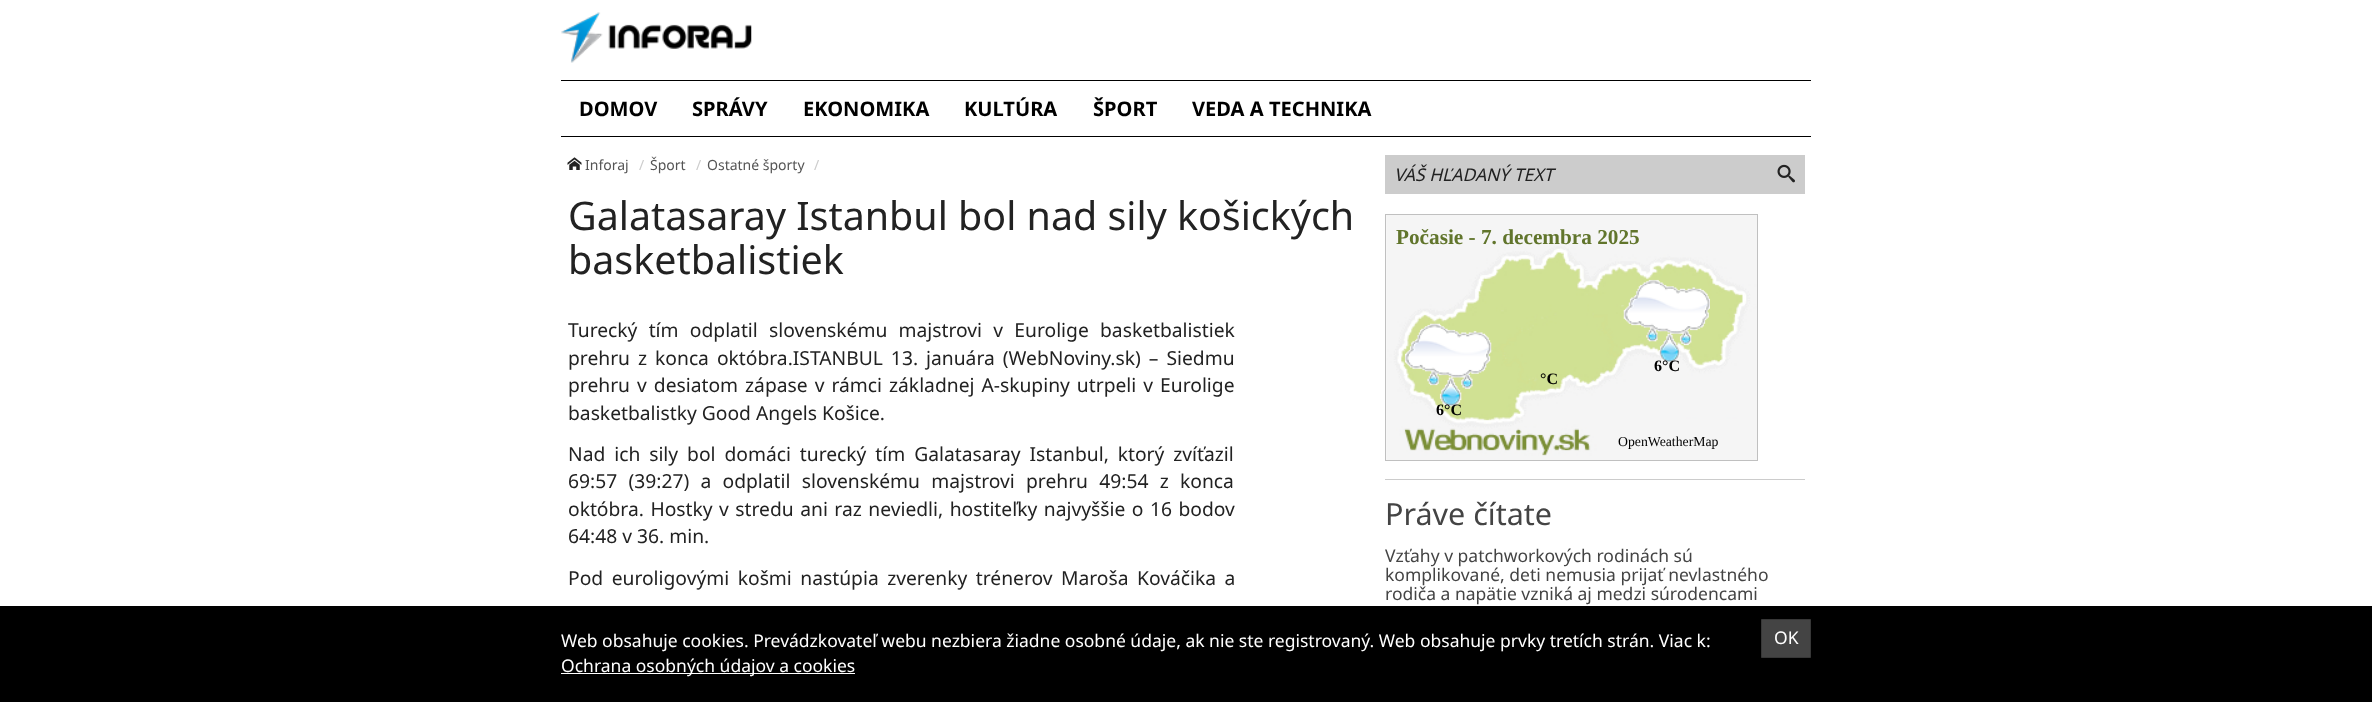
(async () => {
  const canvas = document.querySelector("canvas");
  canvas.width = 2372;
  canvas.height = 702;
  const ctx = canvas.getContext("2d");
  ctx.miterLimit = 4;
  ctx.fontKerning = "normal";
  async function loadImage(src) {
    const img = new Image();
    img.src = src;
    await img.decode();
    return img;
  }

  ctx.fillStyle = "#ffffff";
  ctx.fillRect(0, 0, 2372, 702);
  ctx.drawImage(await loadImage("img/1.png"), 561, 12, 191, 51);
  ctx.fillStyle = "#000000";
  ctx.fillRect(561, 80, 1250, 1);
  ctx.fillRect(561, 136, 1250, 1);
  ctx.drawImage(await loadImage("img/2.png"), 567, 157, 15, 13);
  ctx.fillStyle = "#cccccc";
  ctx.fillRect(1385, 155, 420, 39);
  ctx.drawImage(await loadImage("img/3.png"), 1777, 164, 18, 19);
  ctx.fillRect(1385, 479, 420, 1);
  ctx.drawImage(await loadImage("img/4.png"), 1386, 215, 371, 245);
  ctx.strokeStyle = "#c0c0c0";
  ctx.strokeRect(1385.5, 214.5, 372, 246);
  ctx.drawImage(await loadImage("img/5.png"), 1405, 323, 87, 84);
  ctx.drawImage(await loadImage("img/6.png"), 1623, 279, 87, 84);
  ctx.fillStyle = "#000000";
  ctx.fillRect(0, 606, 2372, 96);
  ctx.fillStyle = "#ffffff";
  ctx.fillRect(561, 673, 294, 1);
  ctx.fillStyle = "#444444";
  ctx.beginPath();
  ctx.rect(1761.5, 619.5, 49, 38);
  ctx.fill();
  ctx.strokeStyle = "#373737";
  ctx.stroke();
  ctx.font = "bold 20.1px Noto Sans";
  ctx.fillStyle = "#000000";
  for (const [text, x, y] of [
    ["DOMOV", 579, 116],
    ["SPRÁVY", 692, 116],
    ["EKONOMIKA", 803, 116],
    ["KULTÚRA", 964, 116],
    ["ŠPORT", 1093, 116],
    ["VEDA A TECHNIKA", 1192, 116],
  ]) {
    ctx.fillText(text, x, y);
  }
  ctx.font = "14px Noto Sans";
  ctx.fillStyle = "#555555";
  ctx.fillText("Inforaj", 585, 170);
  ctx.fillStyle = "#cccccc";
  ctx.fillText("/", 639, 170);
  ctx.fillStyle = "#555555";
  ctx.fillText("Šport", 650, 170);
  ctx.fillStyle = "#cccccc";
  ctx.fillText("/", 696, 170);
  ctx.fillStyle = "#555555";
  ctx.fillText("Ostatné športy", 707, 170);
  ctx.fillStyle = "#cccccc";
  ctx.fillText("/", 814, 170);
  ctx.font = "39.4px Noto Sans";
  ctx.fillStyle = "#222222";
  ctx.fillText("Galatasaray Istanbul bol nad sily košických", 568, 230);
  ctx.fillText("basketbalistiek", 568, 274);
  ctx.wordSpacing = "6.25px";
  ctx.font = "19.25px Noto Sans";
  ctx.fillText("Turecký tím odplatil slovenskému majstrovi v Eurolige basketbalistiek", 568, 337);
  ctx.wordSpacing = "3px";
  ctx.fillText("prehru z konca októbra.ISTANBUL 13. januára (WebNoviny.sk) – Siedmu", 568, 365);
  ctx.wordSpacing = "2px";
  ctx.fillText("prehru v desiatom zápase v rámci základnej A-skupiny utrpeli v Eurolige", 568, 392);
  ctx.wordSpacing = "0px";
  ctx.fillText("basketbalistky Good Angels Košice.", 568, 420);
  ctx.wordSpacing = "3.9px";
  ctx.fillText("Nad ich sily bol domáci turecký tím Galatasaray Istanbul, ktorý zvíťazil", 568, 461);
  ctx.wordSpacing = "6.25px";
  ctx.fillText("69:57 (39:27) a odplatil slovenskému majstrovi prehru 49:54 z konca", 568, 488);
  ctx.wordSpacing = "1.5px";
  ctx.fillText("októbra. Hostky v stredu ani raz neviedli, hostiteľky najvyššie o 16 bodov", 568, 516);
  ctx.wordSpacing = "0px";
  ctx.fillText("64:48 v 36. min.", 568, 543);
  ctx.wordSpacing = "3.5px";
  ctx.fillText("Pod euroligovými košmi nastúpia zverenky trénerov Maroša Kováčika a", 568, 585);
  ctx.wordSpacing = "0px";
  ctx.font = "italic 17.5px Noto Sans";
  ctx.fillText("VÁŠ HĽADANÝ TEXT", 1394, 181);
  ctx.font = "bold 21.25px Liberation Serif";
  ctx.fillStyle = "#61752c";
  ctx.fillText("Počasie - 7. decembra 2025", 1396, 244);
  ctx.font = "bold 16px Liberation Serif";
  ctx.fillStyle = "#000000";
  for (const [text, x, y] of [
    ["6°C", 1654, 371],
    ["°C", 1540, 384],
    ["6°C", 1436, 415],
  ]) {
    ctx.fillText(text, x, y);
  }
  ctx.font = "13.75px Liberation Serif";
  ctx.fillText("OpenWeatherMap", 1618, 446);
  ctx.font = "30.5px Noto Sans";
  ctx.fillStyle = "#444444";
  ctx.fillText("Práve čítate", 1385, 525);
  ctx.font = "17.5px Noto Sans";
  for (const [text, x, y] of [
    ["Vzťahy v patchworkových rodinách sú", 1385, 562],
    ["komplikované, deti nemusia prijať nevlastného", 1385, 581],
    ["rodiča a napätie vzniká aj medzi súrodencami", 1385, 600],
  ]) {
    ctx.fillText(text, x, y);
  }
  ctx.fillStyle = "#ffffff";
  for (const [text, x, y] of [
    ["Web obsahuje cookies. Prevádzkovateľ webu nezbiera žiadne osobné údaje, ak nie ste registrovaný. Web obsahuje prvky tretích strán. Viac k:", 561, 647],
    ["Ochrana osobných údajov a cookies", 561, 672],
    ["OK", 1774, 644],
  ]) {
    ctx.fillText(text, x, y);
  }
})();
